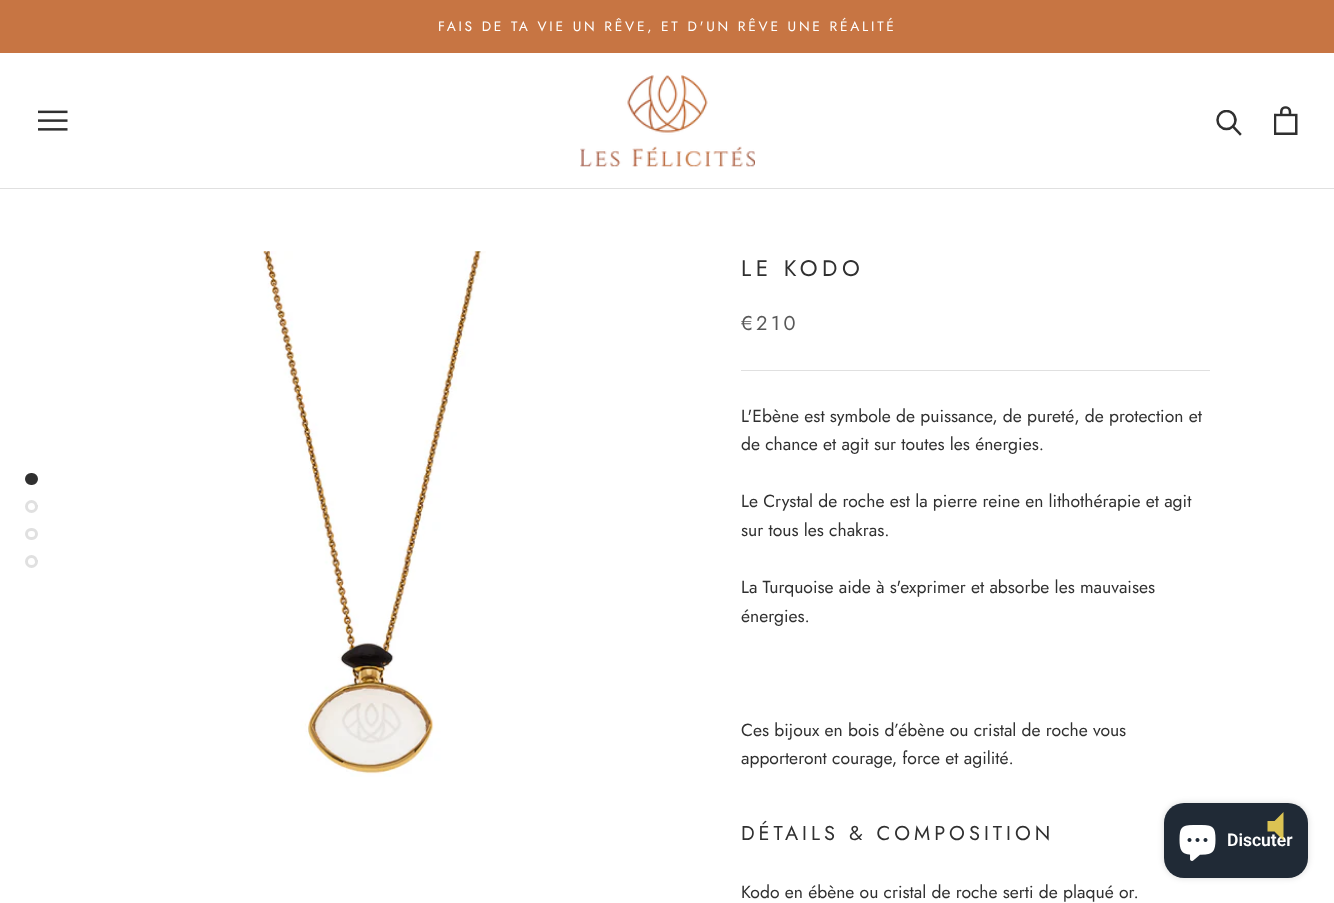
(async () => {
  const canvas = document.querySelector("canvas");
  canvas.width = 1334;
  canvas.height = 903;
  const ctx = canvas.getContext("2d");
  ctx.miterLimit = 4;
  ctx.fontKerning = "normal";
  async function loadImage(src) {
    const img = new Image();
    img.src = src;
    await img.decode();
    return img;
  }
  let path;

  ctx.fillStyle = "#ffffff";
  ctx.fillRect(0, 0, 1334, 903);
  ctx.fillStyle = "#c77543";
  ctx.fillRect(0, 0, 1334, 53);
  ctx.fillStyle = "#e0e0e0";
  ctx.fillRect(0, 188, 1334, 1);
  ctx.drawImage(await loadImage("img/1.png"), 38, 110, 30, 21);
  ctx.drawImage(await loadImage("img/2.png"), 580, 75, 175, 92);
  path = new Path2D("M1240 134L1233 126.5");
  ctx.strokeStyle = "#303030";
  ctx.lineWidth = 2.5;
  ctx.lineCap = "square";
  ctx.stroke(path);
  ctx.save();
  ctx.beginPath();
  ctx.rect(1216, 110, 27, 26);
  ctx.clip();
  ctx.beginPath();
  ctx.arc(1226.5, 120, 9, 0, Math.PI * 2);
  ctx.stroke();
  ctx.restore();
  ctx.drawImage(await loadImage("img/3.png"), 1274, 106, 24, 29);
  ctx.fillStyle = "#303030";
  ctx.beginPath();
  ctx.roundRect(26.5, 474.5, 10, 9, 4.5);
  ctx.fill();
  ctx.lineWidth = 3;
  ctx.stroke();
  ctx.beginPath();
  ctx.arc(31.5, 506.5, 5, 0, Math.PI * 2);
  ctx.strokeStyle = "#e0e0e0";
  ctx.stroke();
  ctx.beginPath();
  ctx.roundRect(26.5, 529.5, 10, 9, 4.5);
  ctx.stroke();
  ctx.beginPath();
  ctx.arc(31.5, 561.5, 5, 0, Math.PI * 2);
  ctx.stroke();
  ctx.drawImage(await loadImage("img/4.png"), 261, 251, 225, 526);
  ctx.fillStyle = "#e0e0e0";
  ctx.fillRect(741, 370, 469, 1);
  ctx.fillStyle = "rgba(0, 0, 0, 0.15)";
  ctx.filter = "blur(3px)";
  ctx.beginPath();
  ctx.roundRect(1164, 803, 144, 75, 20);
  ctx.fill();
  ctx.filter = "none";
  ctx.fillStyle = "#202a36";
  ctx.beginPath();
  ctx.roundRect(1164, 803, 144, 75, 20);
  ctx.fill();
  ctx.drawImage(await loadImage("img/5.png"), 1179, 825, 37, 36);
  ctx.letterSpacing = "2.75px";
  ctx.font = "13.75px Jost";
  ctx.fillStyle = "#ffffff";
  ctx.fillText("FAIS DE TA VIE UN RÊVE, ET D'UN RÊVE UNE RÉALITÉ", 438, 31);
  ctx.letterSpacing = "4.5px";
  ctx.font = "22.5px Jost";
  ctx.fillStyle = "#303030";
  ctx.fillText("LE KODO", 741, 276);
  ctx.letterSpacing = "3.5px";
  ctx.font = "20px Jost";
  ctx.fillStyle = "#595959";
  ctx.fillText("€210", 741, 330);
  ctx.letterSpacing = "0px";
  ctx.font = "17.5px Jost";
  ctx.fillStyle = "#303030";
  for (const [text, x, y] of [
    ["L'Ebène est symbole de puissance, de pureté, de protection et", 741, 422],
    ["de chance et agit sur toutes les énergies.", 741, 450],
    ["Le Crystal de roche est la pierre reine en lithothérapie et agit", 741, 507],
    ["sur tous les chakras.", 741, 536],
    ["La Turquoise aide à s'exprimer et absorbe les mauvaises", 741, 593],
    ["énergies.", 741, 622],
    ["Ces bijoux en bois d’ébène ou cristal de roche vous", 741, 736],
    ["apporteront courage, force et agilité.", 741, 764],
  ]) {
    ctx.fillText(text, x, y);
  }
  ctx.letterSpacing = "4px";
  ctx.font = "20px Jost";
  ctx.fillText("DÉTAILS & COMPOSITION", 741, 840);
  ctx.letterSpacing = "0px";
  ctx.font = "17.5px Jost";
  ctx.fillText("Kodo en ébène ou cristal de roche serti de plaqué or.", 741, 898);
  ctx.font = "600 17.5px Roboto";
  ctx.fillStyle = "#ffffff";
  ctx.fillText("Discuter", 1227, 846);
  ctx.fillStyle = "rgba(239, 212, 87, 0.9)";
  path = new Path2D("M1267.5 821V831.5H1274.5L1283.5 840.5V812L1274.5 821Z");
  ctx.fill(path);
})();
